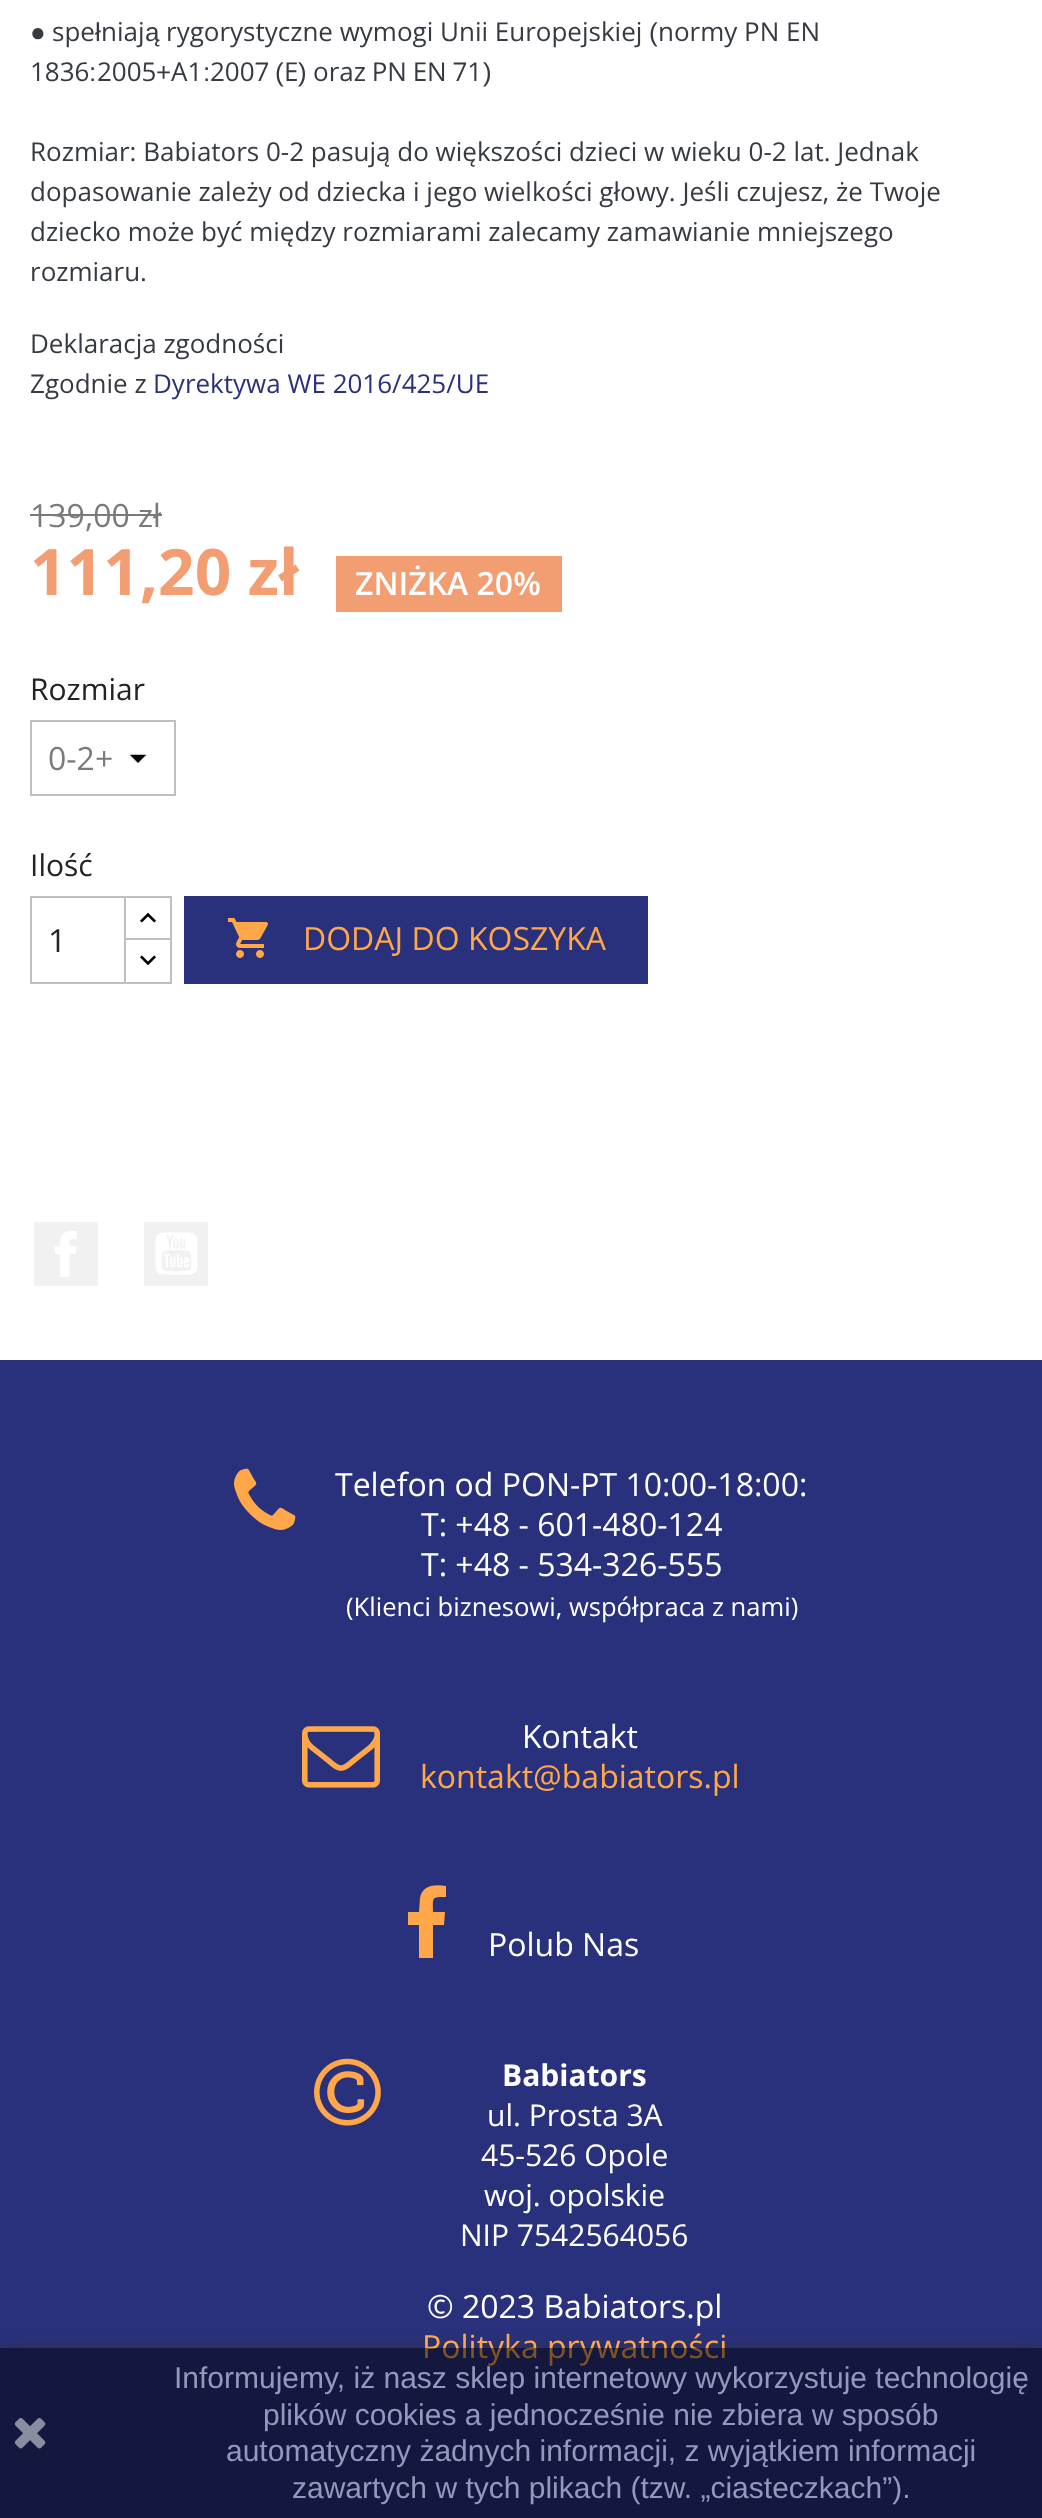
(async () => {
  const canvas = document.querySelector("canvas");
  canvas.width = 1042;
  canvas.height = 2518;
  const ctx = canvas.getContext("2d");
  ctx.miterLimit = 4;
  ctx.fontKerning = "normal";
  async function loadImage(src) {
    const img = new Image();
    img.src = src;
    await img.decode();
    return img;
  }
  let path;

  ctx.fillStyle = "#ffffff";
  ctx.fillRect(0, 0, 1042, 2518);
  ctx.fillStyle = "#7a7a7a";
  ctx.fillRect(30, 514, 132, 2);
  ctx.fillStyle = "#f39d72";
  ctx.fillRect(336, 556, 226, 56);
  ctx.drawImage(await loadImage("img/1.png"), 129, 754, 18, 9);
  ctx.strokeStyle = "#bfbfbf";
  ctx.lineWidth = 2;
  ctx.strokeRect(31, 721, 144, 74);
  ctx.strokeRect(125, 897, 46, 44);
  ctx.fillStyle = "#ffffff";
  ctx.fillRect(126, 940, 44, 2);
  ctx.strokeRect(125, 939, 46, 44);
  ctx.strokeRect(31, 897, 94, 86);
  ctx.drawImage(await loadImage("img/2.png"), 140, 912, 16, 11);
  ctx.drawImage(await loadImage("img/3.png"), 140, 955, 16, 11);
  ctx.fillStyle = "#2a317c";
  ctx.fillRect(184, 896, 464, 88);
  ctx.drawImage(await loadImage("img/4.png"), 227, 918, 41, 40);
  ctx.fillStyle = "#f1f1f1";
  ctx.fillRect(34, 1222, 64, 64);
  ctx.drawImage(await loadImage("img/5.png"), 55, 1231, 22, 46);
  ctx.fillRect(144, 1222, 64, 64);
  ctx.drawImage(await loadImage("img/6.png"), 155, 1232, 43, 43);
  ctx.fillStyle = "#2a317c";
  ctx.fillRect(0, 1360, 1042, 1158);
  ctx.drawImage(await loadImage("img/7.png"), 234, 1468, 62, 62);
  ctx.drawImage(await loadImage("img/8.png"), 302, 1726, 78, 62);
  ctx.fillStyle = "#ffa749";
  path = new Path2D("M446 1886V1897C431 1897 433 1897 433 1912H445L444 1925H433V1958H419V1925H408V1912H419L420 1898C422 1885 435 1884 446 1886Z");
  ctx.fill(path);
  ctx.drawImage(await loadImage("img/9.png"), 314, 2058, 67, 68);
  ctx.save();
  ctx.beginPath();
  ctx.rect(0, 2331, 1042, 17);
  ctx.clip();
  ctx.fillStyle = "rgba(43, 43, 43, 0.5)";
  ctx.filter = "blur(10px)";
  ctx.beginPath();
  ctx.rect(0, 2348, 1042, 170);
  ctx.fill();
  ctx.filter = "none";
  ctx.restore();
  ctx.font = "26px Liberation Sans";
  ctx.fillStyle = "#363a42";
  ctx.fillText("●", 30, 41);
  ctx.font = "26px Open Sans";
  ctx.fillText("spe", 52, 41);
  ctx.font = "26px Liberation Sans";
  ctx.fillText("ł", 95, 41);
  ctx.font = "26px Open Sans";
  ctx.fillText("niaj", 101, 41);
  ctx.font = "26px Liberation Sans";
  ctx.fillText("ą", 145, 41);
  ctx.font = "26px Open Sans";
  ctx.fillText("rygorystyczne wymogi Unii Europejskiej", 166, 41);
  ctx.font = "26px Liberation Sans";
  ctx.fillText("(", 649, 41);
  ctx.font = "26px Open Sans";
  ctx.fillText("normy PN EN", 658, 41);
  ctx.fillText("1836", 30, 81);
  ctx.font = "26px Liberation Sans";
  ctx.fillText(":", 89, 81);
  ctx.font = "26px Open Sans";
  ctx.fillText("2005", 97, 81);
  ctx.font = "26px Liberation Sans";
  ctx.fillText("+", 156, 81);
  ctx.font = "26px Open Sans";
  ctx.fillText("A1", 171, 81);
  ctx.font = "26px Liberation Sans";
  ctx.fillText(":", 203, 81);
  ctx.font = "26px Open Sans";
  ctx.fillText("2007", 210, 81);
  ctx.font = "26px Liberation Sans";
  ctx.fillText("(", 275, 81);
  ctx.font = "26px Open Sans";
  ctx.fillText("E", 284, 81);
  ctx.font = "26px Liberation Sans";
  ctx.fillText(")", 298, 81);
  ctx.wordSpacing = "-1px";
  ctx.font = "26px Open Sans";
  ctx.fillText("oraz PN EN 71", 313, 81);
  ctx.wordSpacing = "0px";
  ctx.font = "26px Liberation Sans";
  ctx.fillText(")", 483, 81);
  ctx.font = "26px Open Sans";
  for (const [text, x, y] of [
    ["Rozmiar: Babiators 0-2 pasują do większości dzieci w wieku 0-2 lat. Jednak", 30, 161],
    ["dopasowanie zależy od dziecka i jego wielkości głowy. Jeśli czujesz, że Twoje", 30, 201],
    ["dziecko może być między rozmiarami zalecamy zamawianie mniejszego", 30, 241],
    ["rozmiaru.", 30, 281],
    ["Deklaracja zgodności", 30, 353],
    ["Zgodnie z", 30, 393],
  ]) {
    ctx.fillText(text, x, y);
  }
  ctx.fillStyle = "#2a317c";
  ctx.fillText("Dyrektywa WE 2016/425/UE", 153, 393);
  ctx.font = "32px Open Sans";
  ctx.fillStyle = "#7a7a7a";
  ctx.fillText("139,00 zł", 30, 527);
  ctx.font = "bold 64px Open Sans";
  ctx.fillStyle = "#f39d72";
  ctx.fillText("111,20 zł", 30, 595);
  ctx.font = "600 32px Open Sans";
  ctx.fillStyle = "#ffffff";
  ctx.fillText("ZNIŻKA 20%", 355, 595);
  ctx.font = "30px Open Sans";
  ctx.fillStyle = "#232323";
  ctx.fillText("Rozmiar", 30, 700);
  ctx.font = "32px Open Sans";
  ctx.fillStyle = "#7a7a7a";
  ctx.fillText("0-2+", 48, 770);
  ctx.font = "30px Open Sans";
  ctx.fillStyle = "#232323";
  ctx.fillText("Ilość", 30, 876);
  ctx.font = "32px Open Sans";
  ctx.fillText("1", 48, 952);
  ctx.fillStyle = "#ffa749";
  ctx.fillText("DODAJ DO KOSZYKA", 303, 950);
  ctx.fillStyle = "#ffffff";
  for (const [text, x, y] of [
    ["Telefon od PON-PT 10:00-18:00:", 335, 1496],
    ["T: +48 - 601-480-124", 421, 1536],
    ["T: +48 - 534-326-555", 421, 1576],
  ]) {
    ctx.fillText(text, x, y);
  }
  ctx.font = "25.6px Open Sans";
  ctx.fillText("(Klienci biznesowi, współpraca z nami)", 346, 1616);
  ctx.font = "32px Open Sans";
  ctx.fillText("Kontakt", 522, 1748);
  ctx.fillStyle = "#ffa749";
  ctx.fillText("kontakt@babiators.pl", 420, 1788);
  ctx.fillStyle = "#ffffff";
  ctx.fillText("Polub Nas", 488, 1956);
  ctx.font = "bold 30px Open Sans";
  ctx.fillText("Babiators", 502, 2086);
  ctx.font = "30px Open Sans";
  for (const [text, x, y] of [
    ["ul. Prosta 3A", 487, 2126],
    ["45-526 Opole", 481, 2166],
    ["woj. opolskie", 484, 2206],
    ["NIP 7542564056", 460, 2246],
  ]) {
    ctx.fillText(text, x, y);
  }
  ctx.font = "32px Open Sans";
  ctx.fillText("© 2023 Babiators.pl", 427, 2318);
  ctx.fillStyle = "#ffa749";
  ctx.fillText("Polityka prywatności", 422, 2358);
  ctx.fillStyle = "rgba(0, 0, 0, 0.5)";
  ctx.fillRect(0, 2348, 1042, 170);
  ctx.drawImage(await loadImage("img/10.png"), 14, 2418, 32, 31);
  ctx.font = "30px Liberation Sans";
  ctx.fillStyle = "#9598be";
  for (const [text, x, y] of [
    ["Informujemy, iż nasz sklep internetowy wykorzystuje technologię", 174, 2388],
    ["plików cookies a jednocześnie nie zbiera w sposób", 263, 2425],
    ["automatyczny żadnych informacji, z wyjątkiem informacji", 226, 2461],
    ["zawartych w tych plikach (tzw. „ciasteczkach”).", 292, 2498],
  ]) {
    ctx.fillText(text, x, y);
  }
})();
